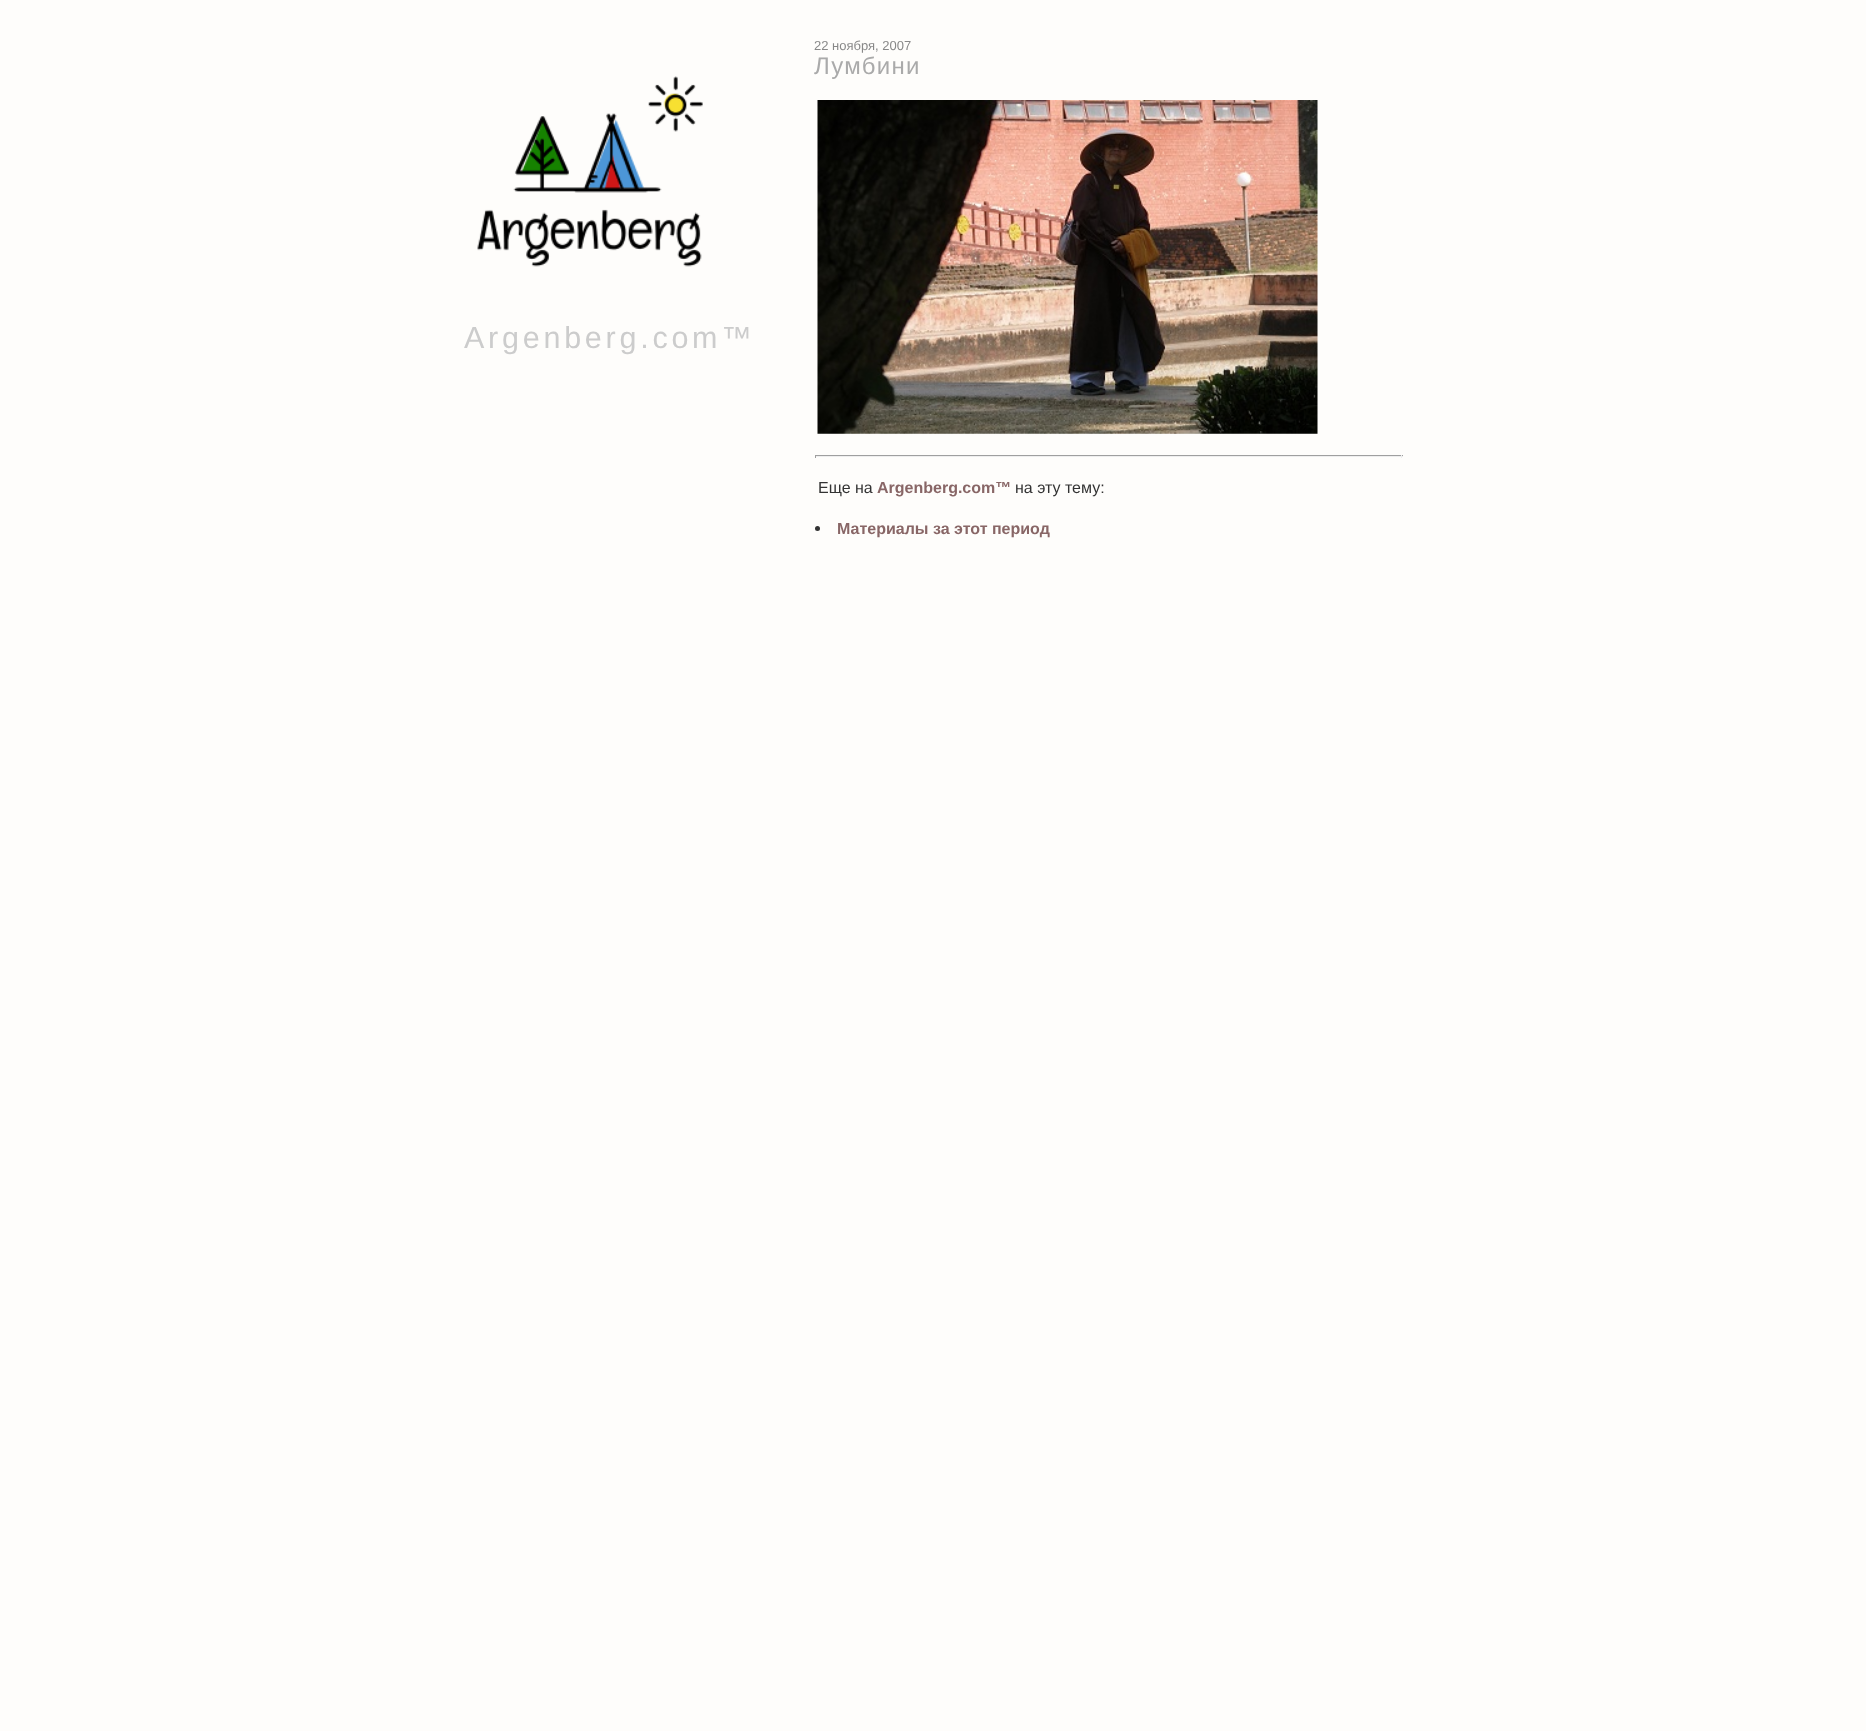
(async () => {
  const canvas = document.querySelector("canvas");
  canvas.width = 1866;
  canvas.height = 1731;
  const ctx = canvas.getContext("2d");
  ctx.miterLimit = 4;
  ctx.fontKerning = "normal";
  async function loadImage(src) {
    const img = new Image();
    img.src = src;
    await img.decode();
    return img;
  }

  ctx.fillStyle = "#fefdfb";
  ctx.fillRect(0, 0, 1866, 1731);
  ctx.drawImage(await loadImage("img/1.png"), 477, 76, 226, 191);
  ctx.drawImage(await loadImage("img/2.png"), 817, 100, 501, 334);
  for (const [x, y, w, h, color] of [
    [815, 455, 588, 1, "#9f9f9f"],
    [1401, 455, 1, 3, "#eeeeee"],
    [815, 456, 588, 1, "#eeeeee"],
    [815, 455, 1, 3, "#9f9f9f"],
  ]) {
    ctx.fillStyle = color;
    ctx.fillRect(x, y, w, h);
  }
  ctx.fillStyle = "#333333";
  ctx.beginPath();
  ctx.arc(817.5, 528.5, 2.5, 0, Math.PI * 2);
  ctx.fill();
  ctx.letterSpacing = "3.75px";
  ctx.font = "30.5px Liberation Sans";
  ctx.fillStyle = "#cccccc";
  ctx.fillText("Argenberg.com™", 464, 348);
  ctx.letterSpacing = "0px";
  ctx.font = "13px Liberation Sans";
  ctx.fillStyle = "#888888";
  ctx.fillText("22 ноября, 2007", 814, 50);
  ctx.letterSpacing = "1.25px";
  ctx.font = "24px Liberation Sans";
  ctx.fillStyle = "#aaaaaa";
  ctx.fillText("Лумбини", 814, 74);
  ctx.letterSpacing = "0px";
  ctx.font = "16px Liberation Sans";
  ctx.fillStyle = "#333333";
  ctx.fillText("Еще на", 818, 493);
  ctx.font = "bold 16px Liberation Sans";
  ctx.fillStyle = "#886666";
  ctx.fillText("Argenberg.com™", 877, 493);
  ctx.font = "16px Liberation Sans";
  ctx.fillStyle = "#333333";
  ctx.fillText("на эту тему:", 1015, 493);
  ctx.font = "bold 16px Liberation Sans";
  ctx.fillStyle = "#886666";
  ctx.fillText("Материалы за этот период", 837, 534);
})();
